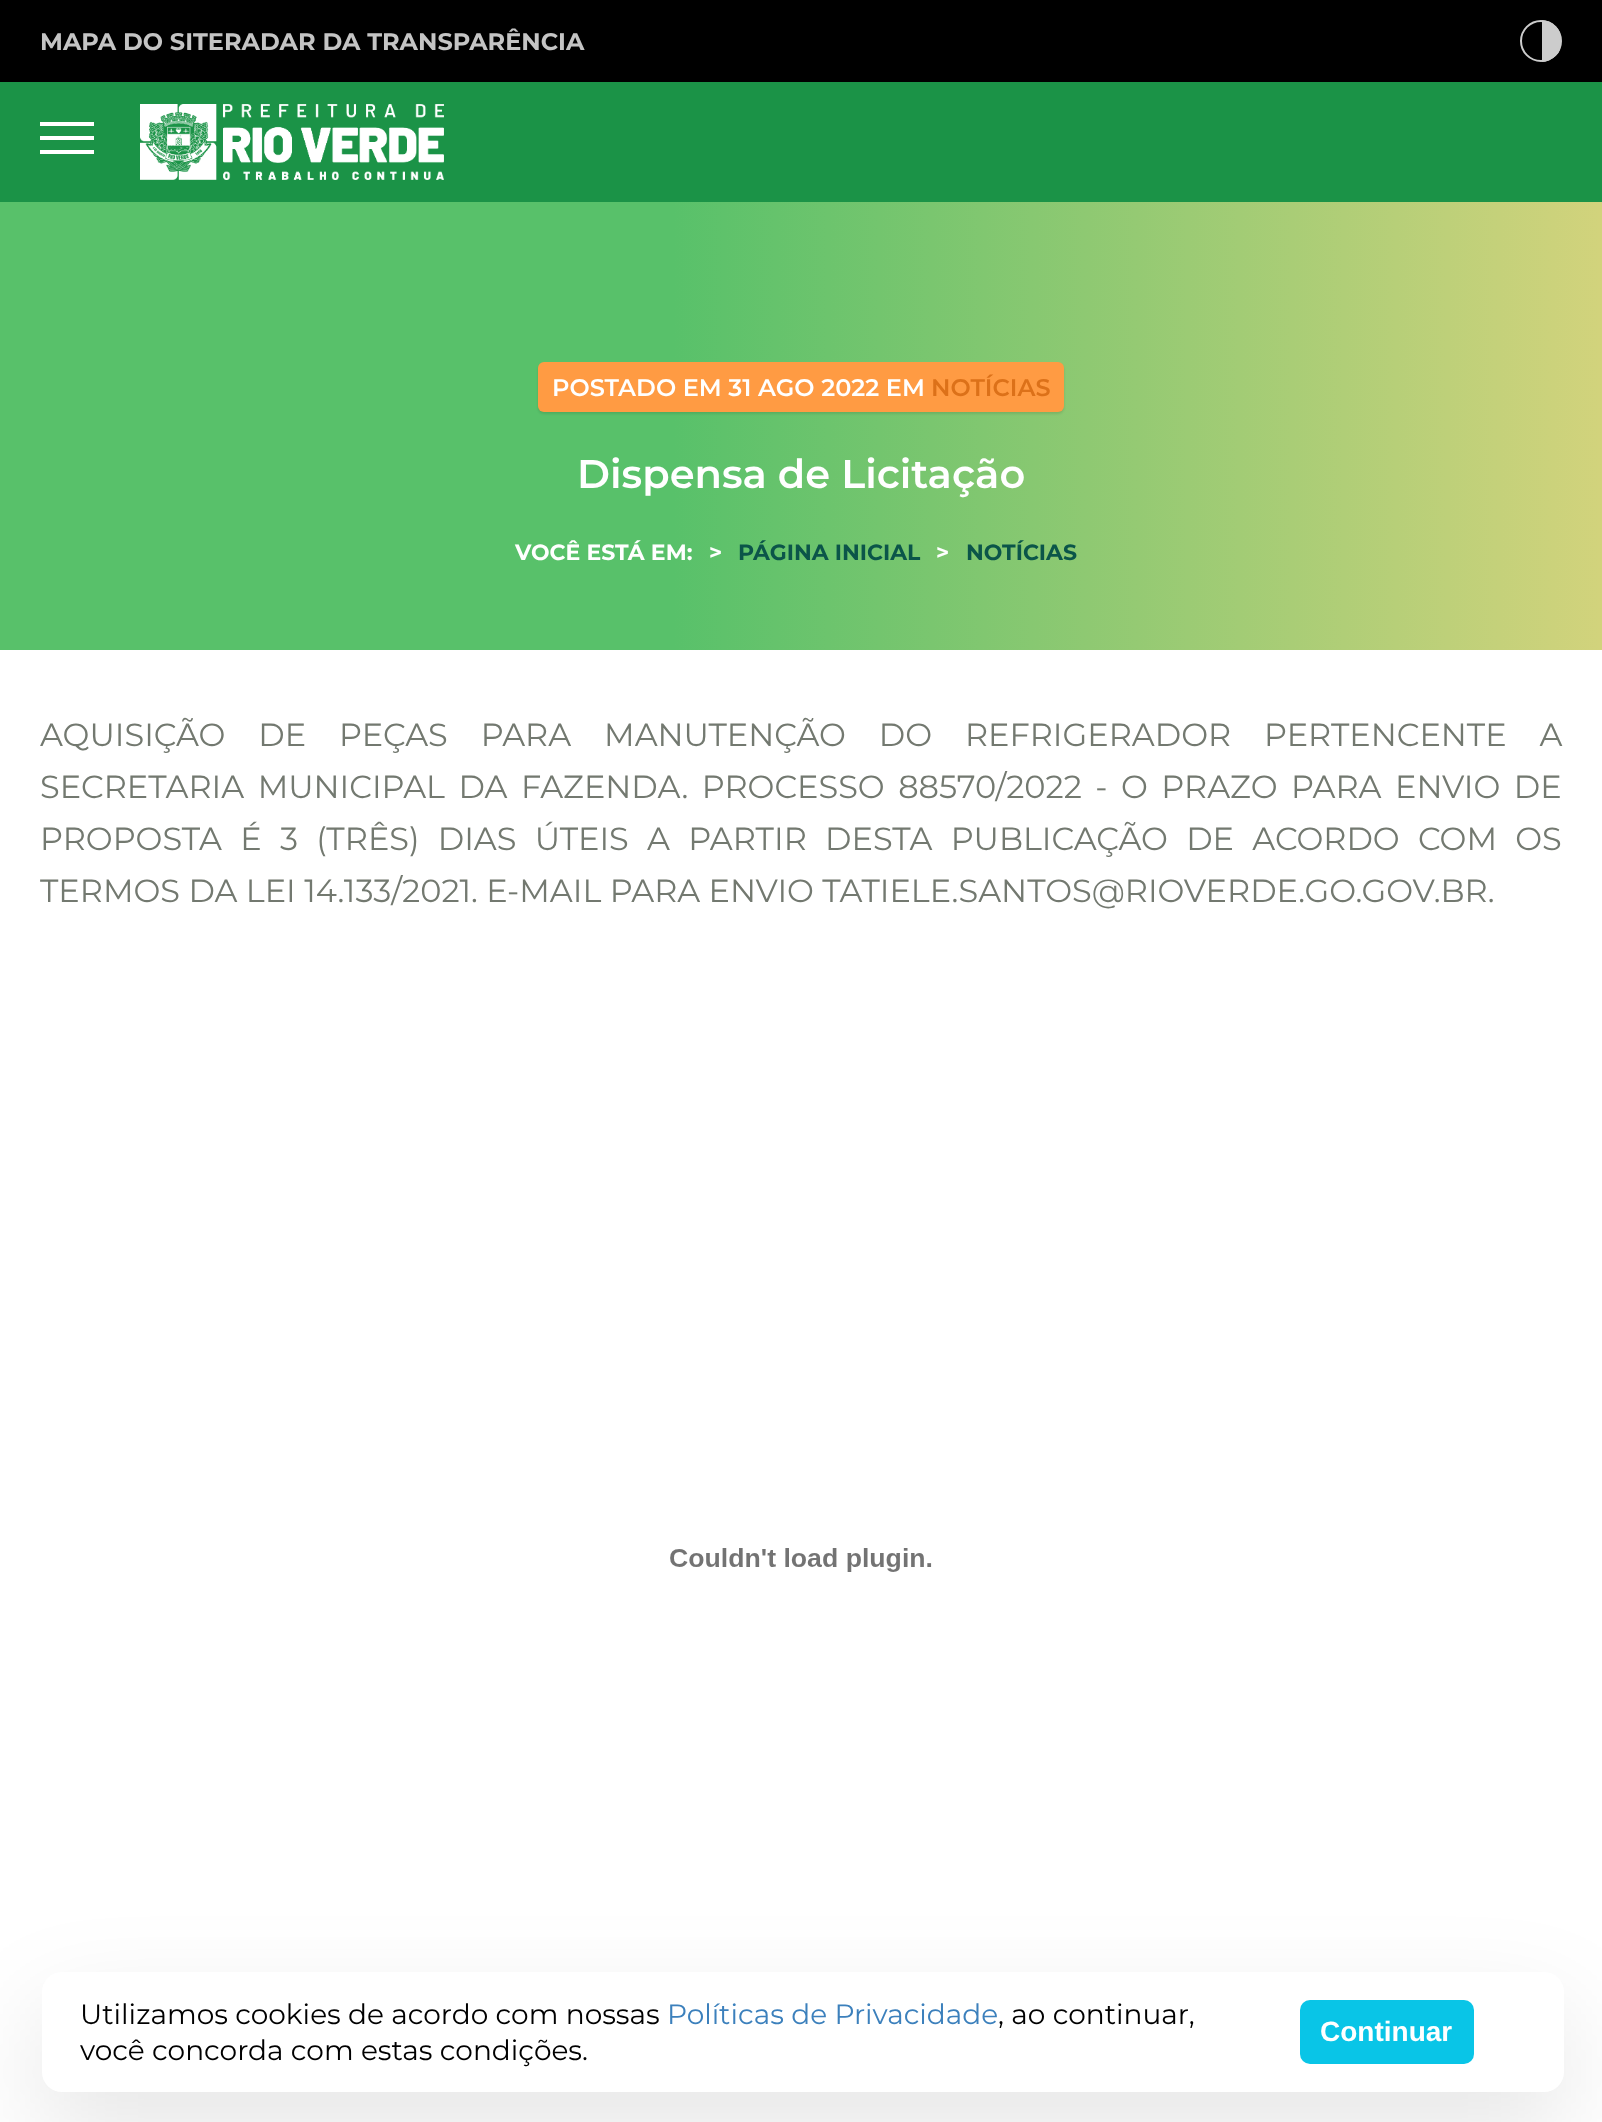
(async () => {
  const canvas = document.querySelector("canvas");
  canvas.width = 1602;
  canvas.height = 2122;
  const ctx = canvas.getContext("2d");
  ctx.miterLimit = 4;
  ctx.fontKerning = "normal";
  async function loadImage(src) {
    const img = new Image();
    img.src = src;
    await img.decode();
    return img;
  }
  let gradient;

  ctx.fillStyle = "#ffffff";
  ctx.fillRect(0, 0, 1602, 2122);
  ctx.fillStyle = "#000000";
  ctx.fillRect(0, 0, 1602, 82);
  ctx.save();
  ctx.beginPath();
  ctx.roundRect(1520, 20, 42, 42, 21);
  ctx.clip();
  ctx.fillStyle = "#cccccc";
  ctx.fillRect(1542, 20, 18, 42);
  ctx.restore();
  ctx.beginPath();
  ctx.arc(1541, 41, 20, 0, Math.PI * 2);
  ctx.strokeStyle = "#cccccc";
  ctx.lineWidth = 2;
  ctx.stroke();
  for (const [x, y, w, h, color] of [
    [0, 82, 1602, 120, "#1b9347"],
    [40, 136, 54, 4, "#ffffff"],
    [40, 122, 54, 4, "#ffffff"],
    [40, 150, 54, 4, "#ffffff"],
  ]) {
    ctx.fillStyle = color;
    ctx.fillRect(x, y, w, h);
  }
  ctx.drawImage(await loadImage("img/1.png"), 140, 104, 304, 76);
  gradient = ctx.createLinearGradient(1602, 426, 0, 426);
  gradient.addColorStop(0, "#d2d37c");
  gradient.addColorStop(0.58, "#58c16a");
  ctx.fillStyle = gradient;
  ctx.fillRect(0, 202, 1602, 448);
  ctx.fillStyle = "rgba(0, 0, 0, 0.1)";
  ctx.filter = "blur(1px)";
  ctx.beginPath();
  ctx.roundRect(538, 364, 526, 50, 6);
  ctx.fill();
  ctx.filter = "none";
  ctx.fillStyle = "#ff9b43";
  ctx.beginPath();
  ctx.roundRect(538, 362, 526, 50, 6);
  ctx.fill();
  ctx.drawImage(await loadImage("img/2.png"), 670, 1548, 262, 24);
  ctx.fillStyle = "rgba(0, 0, 0, 0.1)";
  ctx.filter = "blur(50px)";
  ctx.beginPath();
  ctx.roundRect(42, 2012, 1522, 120, 20);
  ctx.fill();
  ctx.filter = "none";
  ctx.fillStyle = "#ffffff";
  ctx.beginPath();
  ctx.roundRect(42, 1972, 1522, 120, 20);
  ctx.fill();
  ctx.fillStyle = "#09c5e7";
  ctx.beginPath();
  ctx.roundRect(1300, 2000, 174, 64, 10);
  ctx.fill();
  ctx.font = "bold 24px Montserrat";
  ctx.fillStyle = "#c4c4c4";
  ctx.fillText("MAPA DO SITERADAR DA TRANSPARÊNCIA", 40, 50);
  ctx.font = "600 24px Montserrat";
  ctx.fillStyle = "#ffffff";
  ctx.fillText("POSTADO EM 31 AGO 2022 EM", 552, 396);
  ctx.fillStyle = "#dc7119";
  ctx.fillText("NOTÍCIAS", 931, 396);
  ctx.font = "600 40px Montserrat";
  ctx.fillStyle = "#ffffff";
  ctx.fillText("Dispensa de Licitação", 577, 488);
  ctx.font = "bold 22px Montserrat";
  ctx.fillText("VOCÊ ESTÁ EM:", 515, 560);
  ctx.fillText(">", 709, 560);
  ctx.fillStyle = "#0b5549";
  ctx.fillText("PÁGINA INICIAL", 738, 560);
  ctx.fillStyle = "#ffffff";
  ctx.fillText(">", 936, 560);
  ctx.fillStyle = "#0b5549";
  ctx.fillText("NOTÍCIAS", 966, 560);
  ctx.wordSpacing = "24.5px";
  ctx.font = "32px Montserrat";
  ctx.fillStyle = "#737970";
  ctx.fillText("AQUISIÇÃO DE PEÇAS PARA MANUTENÇÃO DO REFRIGERADOR PERTENCENTE A", 40, 746);
  ctx.wordSpacing = "5.1px";
  ctx.fillText("SECRETARIA MUNICIPAL DA FAZENDA. PROCESSO 88570/2022 - O PRAZO PARA ENVIO DE", 40, 798);
  ctx.wordSpacing = "9.9px";
  ctx.fillText("PROPOSTA É 3 (TRÊS) DIAS ÚTEIS A PARTIR DESTA PUBLICAÇÃO DE ACORDO COM OS", 40, 850);
  ctx.wordSpacing = "0px";
  ctx.fillText("TERMOS DA LEI 14.133/2021. E-MAIL PARA ENVIO TATIELE.SANTOS@RIOVERDE.GO.GOV.BR.", 40, 902);
  ctx.font = "28px Montserrat";
  ctx.fillStyle = "#000000";
  ctx.fillText("Utilizamos cookies de acordo com nossas", 80, 2024);
  ctx.fillStyle = "#3c80bc";
  ctx.fillText("Políticas de Privacidade", 667, 2024);
  ctx.fillStyle = "#000000";
  ctx.fillText(", ao continuar,", 998, 2024);
  ctx.fillText("você concorda com estas condições.", 80, 2060);
  ctx.font = "bold 28px Liberation Sans";
  ctx.fillStyle = "#ffffff";
  ctx.fillText("Continuar", 1320, 2041);
})();
